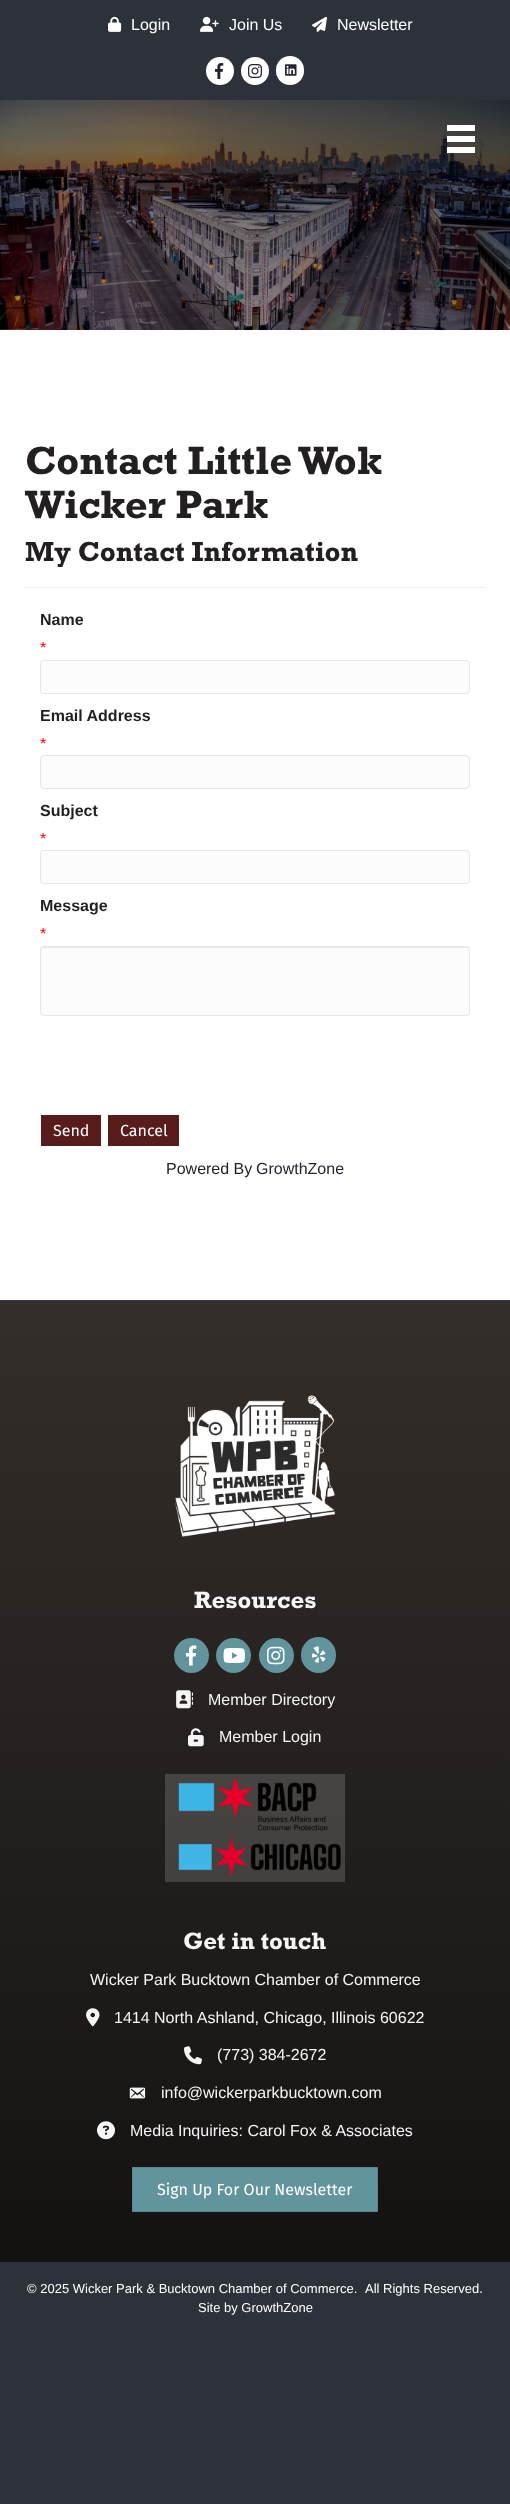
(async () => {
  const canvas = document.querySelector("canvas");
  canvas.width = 510;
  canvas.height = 2504;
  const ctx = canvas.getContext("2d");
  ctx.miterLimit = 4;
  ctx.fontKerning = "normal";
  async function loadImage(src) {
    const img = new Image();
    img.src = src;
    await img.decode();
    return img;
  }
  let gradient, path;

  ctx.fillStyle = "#2d313a";
  ctx.fillRect(0, 0, 510, 2504);
  ctx.drawImage(await loadImage("img/1.png"), 108, 16, 14, 16);
  ctx.drawImage(await loadImage("img/2.png"), 200, 16, 19, 16);
  ctx.drawImage(await loadImage("img/3.png"), 312, 16, 15, 16);
  ctx.fillStyle = "#ffffff";
  ctx.beginPath();
  ctx.arc(220, 71, 14, 0, Math.PI * 2);
  ctx.fill();
  ctx.drawImage(await loadImage("img/4.png"), 215, 63, 9, 16);
  ctx.beginPath();
  ctx.arc(255, 71, 14, 0, Math.PI * 2);
  ctx.fill();
  ctx.drawImage(await loadImage("img/5.png"), 248, 64, 14, 14);
  ctx.beginPath();
  ctx.roundRect(276, 56, 28, 29, 14);
  ctx.fill();
  ctx.drawImage(await loadImage("img/6.png"), 285, 64, 12, 12);
  ctx.drawImage(await loadImage("img/7.png"), 0, 100, 510, 230);
  for (const [x, y, w, h, color] of [
    [447, 125, 28, 6, "#ffffff"],
    [447, 136, 28, 6, "#ffffff"],
    [447, 147, 28, 6, "#ffffff"],
    [0, 330, 510, 970, "#ffffff"],
    [25, 587, 460, 1, "#eeeeee"],
  ]) {
    ctx.fillStyle = color;
    ctx.fillRect(x, y, w, h);
  }
  ctx.fillStyle = "#fcfcfc";
  ctx.beginPath();
  ctx.roundRect(40.5, 660.5, 429, 33, 3.5);
  ctx.fill();
  ctx.strokeStyle = "#e6e6e6";
  ctx.stroke();
  ctx.beginPath();
  ctx.roundRect(40.5, 755.5, 429, 33, 3.5);
  ctx.fill();
  ctx.stroke();
  ctx.beginPath();
  ctx.roundRect(40.5, 850.5, 429, 33, 3.5);
  ctx.fill();
  ctx.stroke();
  ctx.beginPath();
  ctx.roundRect(40, 946, 430, 70, 4);
  ctx.fill();
  ctx.fillStyle = "#e9e9e9";
  path = new Path2D("M44 948H466C468 948 469 949 469 951C469 949 468 947 466 947H44C42 947 41 949 41 951C41 949 42 948 44 948Z");
  ctx.fill(path);
  ctx.beginPath();
  ctx.roundRect(40.5, 946.5, 429, 69, 3.5);
  ctx.stroke();
  for (const [x, y, w, h, color] of [
    [41, 1115, 60, 31, "#571c1b"],
    [108, 1115, 71, 31, "#571c1b"],
    [0, 1300, 510, 1, "#2c3a56"],
  ]) {
    ctx.fillStyle = color;
    ctx.fillRect(x, y, w, h);
  }
  gradient = ctx.createLinearGradient(255, 2262, 255, 1301);
  gradient.addColorStop(0, "#141211");
  gradient.addColorStop(1, "#342e2a");
  ctx.fillStyle = gradient;
  ctx.fillRect(0, 1301, 510, 961);
  ctx.drawImage(await loadImage("img/8.png"), 175, 1395, 161, 142);
  ctx.fillStyle = "#62949e";
  ctx.beginPath();
  ctx.arc(191.5, 1655.5, 17.5, 0, Math.PI * 2);
  ctx.fill();
  ctx.drawImage(await loadImage("img/9.png"), 186, 1645, 11, 21);
  ctx.beginPath();
  ctx.arc(233.5, 1655.5, 17.5, 0, Math.PI * 2);
  ctx.fill();
  ctx.drawImage(await loadImage("img/10.png"), 223, 1648, 22, 15);
  ctx.beginPath();
  ctx.arc(276.5, 1655.5, 17.5, 0, Math.PI * 2);
  ctx.fill();
  ctx.drawImage(await loadImage("img/11.png"), 267, 1646, 18, 19);
  ctx.beginPath();
  ctx.roundRect(301, 1637, 35, 36, 17.5);
  ctx.fill();
  ctx.drawImage(await loadImage("img/12.png"), 312, 1646, 14, 17);
  ctx.drawImage(await loadImage("img/13.png"), 176, 1690, 17, 19);
  ctx.drawImage(await loadImage("img/14.png"), 188, 1728, 16, 19);
  ctx.drawImage(await loadImage("img/15.png"), 165, 1774, 180, 108);
  ctx.drawImage(await loadImage("img/16.png"), 86, 2008, 14, 19);
  ctx.drawImage(await loadImage("img/17.png"), 184, 2046, 18, 19);
  ctx.drawImage(await loadImage("img/18.png"), 129, 2087, 17, 12);
  ctx.drawImage(await loadImage("img/19.png"), 97, 2121, 18, 19);
  ctx.beginPath();
  ctx.rect(132.5, 2167.5, 245, 44);
  ctx.fill();
  ctx.strokeStyle = "#568892";
  ctx.stroke();
  ctx.font = "16px Liberation Sans";
  ctx.fillStyle = "#ffffff";
  for (const [text, x, y] of [
    ["Login", 131, 30],
    ["Join Us", 229, 30],
    ["Newsletter", 337, 30],
  ]) {
    ctx.fillText(text, x, y);
  }
  ctx.font = "bold 40px Rockwell";
  ctx.fillStyle = "#231f20";
  ctx.fillText("Contact Little Wok", 25, 474);
  ctx.fillText("Wicker Park", 25, 518);
  ctx.font = "bold 28px Rockwell";
  ctx.fillText("My Contact Information", 25, 561);
  ctx.font = "bold 16px Liberation Sans";
  ctx.fillText("Name", 40, 625);
  ctx.font = "16px Liberation Sans";
  ctx.fillStyle = "#ff0000";
  ctx.fillText("*", 40, 653);
  ctx.font = "bold 16px Liberation Sans";
  ctx.fillStyle = "#231f20";
  ctx.fillText("Email Address", 40, 721);
  ctx.font = "16px Liberation Sans";
  ctx.fillStyle = "#ff0000";
  ctx.fillText("*", 40, 749);
  ctx.font = "bold 16px Liberation Sans";
  ctx.fillStyle = "#231f20";
  ctx.fillText("Subject", 40, 816);
  ctx.font = "16px Liberation Sans";
  ctx.fillStyle = "#ff0000";
  ctx.fillText("*", 40, 844);
  ctx.font = "bold 16px Liberation Sans";
  ctx.fillStyle = "#231f20";
  ctx.fillText("Message", 40, 911);
  ctx.font = "16px Liberation Sans";
  ctx.fillStyle = "#ff0000";
  ctx.fillText("*", 40, 939);
  ctx.font = "16px Fira Sans";
  ctx.fillStyle = "#ffffff";
  ctx.fillText("Send", 53, 1136);
  ctx.fillText("Cancel", 120, 1136);
  ctx.font = "16px Liberation Sans";
  ctx.fillStyle = "#231f20";
  ctx.fillText("Powered By", 166, 1174);
  ctx.fillStyle = "#272333";
  ctx.fillText("GrowthZone", 256, 1174);
  ctx.font = "bold 24px Rockwell";
  ctx.fillStyle = "#f5f5f5";
  ctx.fillText("Resources", 194, 1608);
  ctx.font = "16px Liberation Sans";
  ctx.fillText("Member Directory", 208, 1705);
  ctx.fillText("Member Login", 219, 1742);
  ctx.font = "bold 24px Rockwell";
  ctx.fillText("Get in touch", 183, 1949);
  ctx.font = "16px Liberation Sans";
  for (const [text, x, y] of [
    ["Wicker Park Bucktown Chamber of Commerce", 90, 1985],
    ["1414 North Ashland, Chicago, Illinois 60622", 114, 2023],
    ["(773) 384-2672", 217, 2060],
    ["info@wickerparkbucktown.com", 161, 2098],
    ["Media Inquiries: Carol Fox & Associates", 130, 2136],
  ]) {
    ctx.fillText(text, x, y);
  }
  ctx.font = "16px Fira Sans";
  ctx.fillStyle = "#ffffff";
  ctx.fillText("Sign Up For Our Newsletter", 157, 2195);
  ctx.font = "13px Liberation Sans";
  for (const [text, x, y] of [
    ["© 2025 Wicker Park & Bucktown Chamber of Commerce.", 27, 2293],
    ["All Rights Reserved.", 365, 2293],
    ["Site by GrowthZone", 198, 2312],
  ]) {
    ctx.fillText(text, x, y);
  }
})();
